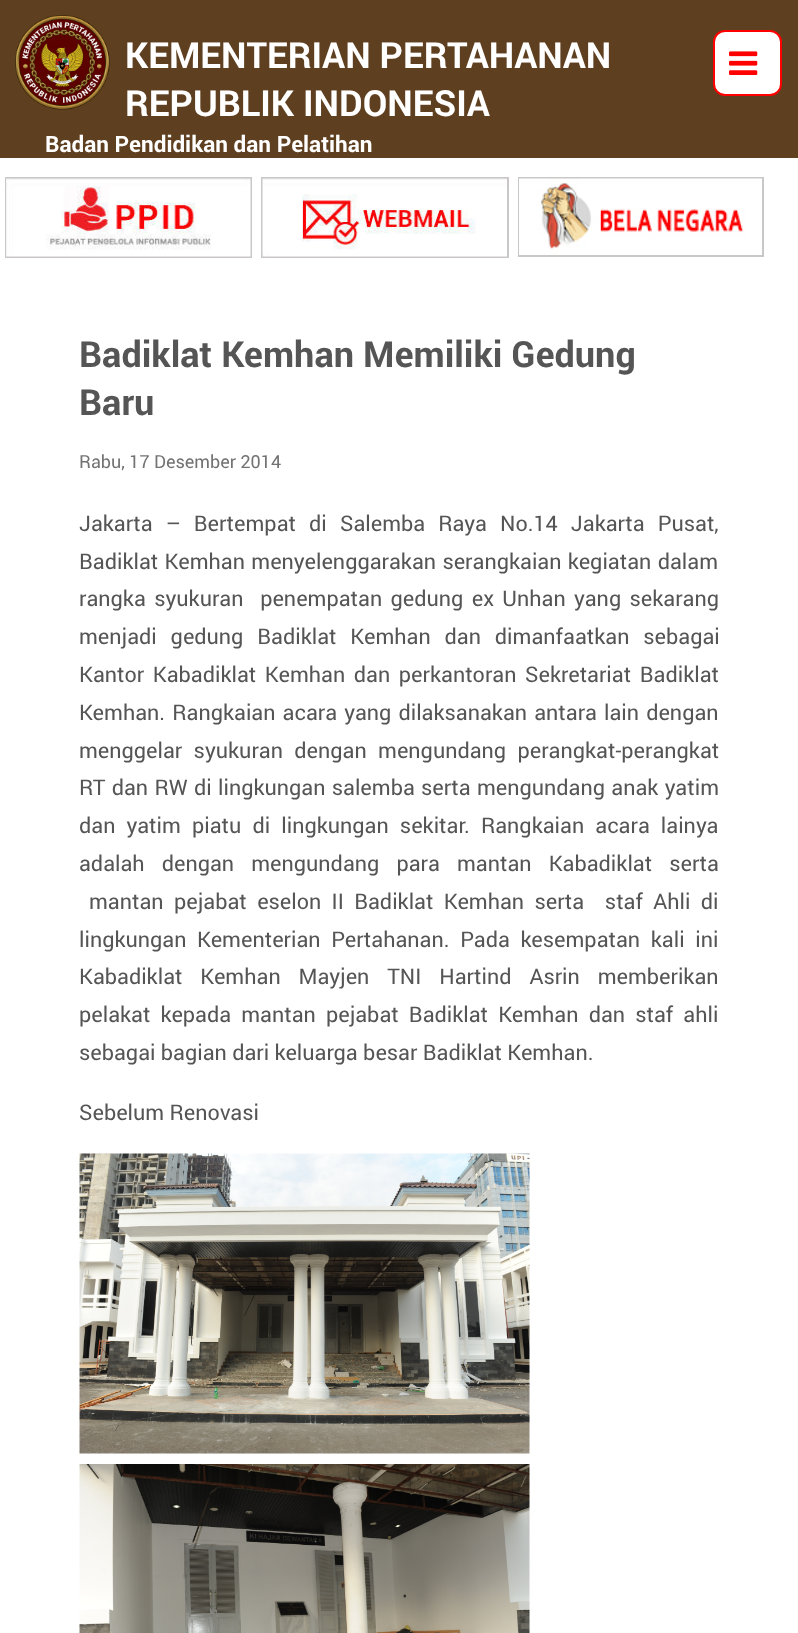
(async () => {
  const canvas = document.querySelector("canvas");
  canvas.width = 798;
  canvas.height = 1633;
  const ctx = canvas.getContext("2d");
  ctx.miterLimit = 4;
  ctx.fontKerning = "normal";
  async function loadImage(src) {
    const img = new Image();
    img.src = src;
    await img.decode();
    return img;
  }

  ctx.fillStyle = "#ffffff";
  ctx.fillRect(0, 0, 798, 1633);
  ctx.fillStyle = "#5e3f1f";
  ctx.fillRect(0, 0, 798, 158);
  ctx.drawImage(await loadImage("img/1.png"), 15, 15, 95, 95);
  ctx.fillStyle = "#ffffff";
  ctx.beginPath();
  ctx.roundRect(714, 31, 67, 64, 11);
  ctx.fill();
  ctx.strokeStyle = "#ff0000";
  ctx.lineWidth = 2;
  ctx.stroke();
  ctx.drawImage(await loadImage("img/2.png"), 729, 51, 29, 24);
  ctx.strokeStyle = "#cac7c7";
  ctx.strokeRect(6, 178, 245, 79);
  ctx.drawImage(await loadImage("img/3.png"), 6, 178, 245, 79);
  ctx.strokeRect(262, 178, 246, 79);
  ctx.drawImage(await loadImage("img/4.png"), 262, 178, 245, 79);
  ctx.strokeRect(519, 178, 244, 78);
  ctx.drawImage(await loadImage("img/5.png"), 519, 178, 243, 77);
  ctx.drawImage(await loadImage("img/6.png"), 79, 1153, 451, 301);
  ctx.drawImage(await loadImage("img/7.png"), 79, 1464, 451, 169);
  ctx.font = "bold 36px Roboto";
  ctx.fillText("KEMENTERIAN PERTAHANAN", 125, 68);
  ctx.fillText("REPUBLIK INDONESIA", 125, 116);
  ctx.font = "bold 22.5px Roboto";
  ctx.fillText("Badan Pendidikan dan Pelatihan", 45, 152);
  ctx.font = "bold 36px Roboto";
  ctx.fillStyle = "#555555";
  ctx.fillText("Badiklat Kemhan Memiliki Gedung", 79, 367);
  ctx.fillText("Baru", 79, 415);
  ctx.font = "18px Roboto";
  ctx.fillStyle = "#737373";
  ctx.fillText("Rabu, 17 Desember 2014", 79, 468);
  ctx.wordSpacing = "7.75px";
  ctx.font = "21.6px Roboto";
  ctx.fillStyle = "#555555";
  ctx.fillText("Jakarta – Bertempat di Salemba Raya No.14 Jakarta Pusat,", 79, 531);
  ctx.wordSpacing = "1px";
  ctx.fillText("Badiklat Kemhan menyelenggarakan serangkaian kegiatan dalam", 79, 569);
  ctx.wordSpacing = "3px";
  ctx.fillText("rangka syukuran  penempatan gedung ex Unhan yang sekarang", 79, 606);
  ctx.wordSpacing = "8.5px";
  ctx.fillText("menjadi gedung Badiklat Kemhan dan dimanfaatkan sebagai", 79, 644);
  ctx.wordSpacing = "3.25px";
  ctx.fillText("Kantor Kabadiklat Kemhan dan perkantoran Sekretariat Badiklat", 79, 682);
  ctx.wordSpacing = "1.75px";
  ctx.fillText("Kemhan. Rangkaian acara yang dilaksanakan antara lain dengan", 79, 720);
  ctx.wordSpacing = "6px";
  ctx.fillText("menggelar syukuran dengan mengundang perangkat-perangkat", 79, 758);
  ctx.wordSpacing = "0.9px";
  ctx.fillText("RT dan RW di lingkungan salemba serta mengundang anak yatim", 79, 795);
  ctx.wordSpacing = "5.75px";
  ctx.fillText("dan yatim piatu di lingkungan sekitar. Rangkaian acara lainya", 79, 833);
  ctx.wordSpacing = "11.75px";
  ctx.fillText("adalah dengan mengundang para mantan Kabadiklat serta", 79, 871);
  ctx.wordSpacing = "5px";
  ctx.fillText("mantan pejabat eselon II Badiklat Kemhan serta  staf Ahli di", 89, 909);
  ctx.wordSpacing = "5.25px";
  ctx.fillText("lingkungan Kementerian Pertahanan. Pada kesempatan kali ini", 79, 947);
  ctx.wordSpacing = "12.5px";
  ctx.fillText("Kabadiklat Kemhan Mayjen TNI Hartind Asrin memberikan", 79, 984);
  ctx.wordSpacing = "4.75px";
  ctx.fillText("pelakat kepada mantan pejabat Badiklat Kemhan dan staf ahli", 79, 1022);
  ctx.wordSpacing = "0px";
  ctx.fillText("sebagai bagian dari keluarga besar Badiklat Kemhan.", 79, 1060);
  ctx.fillText("Sebelum Renovasi", 79, 1120);
})();
